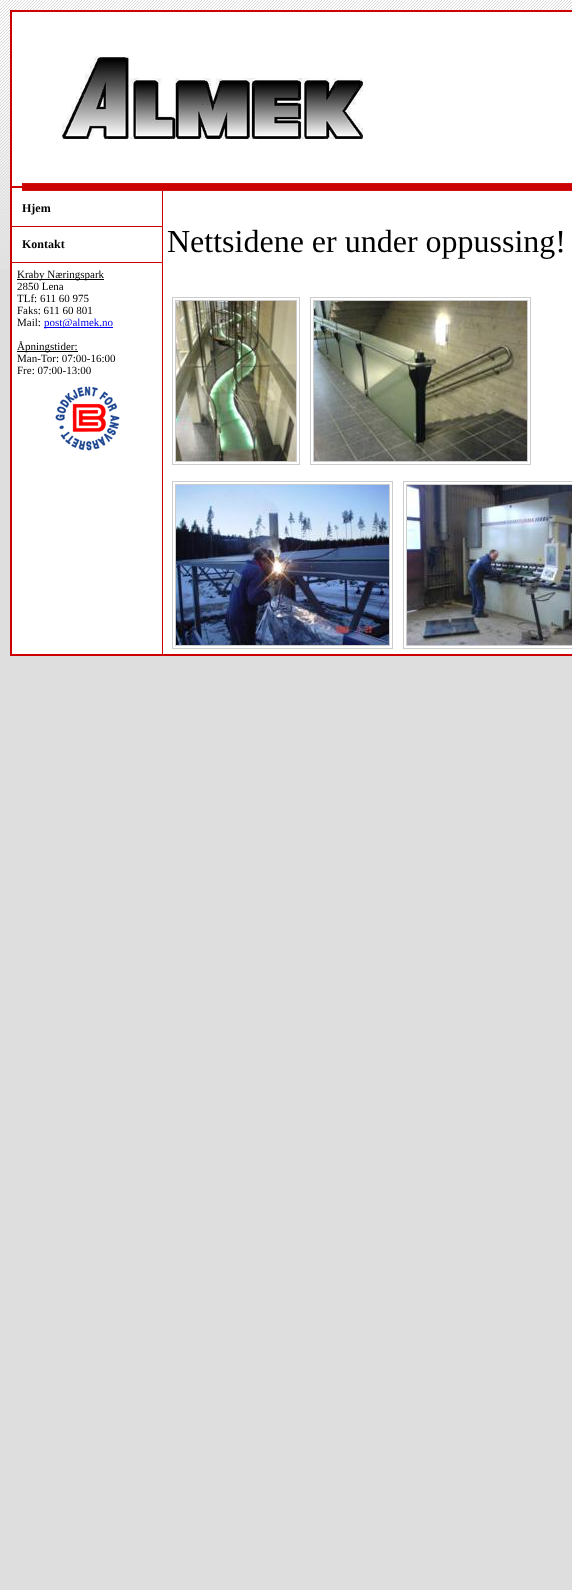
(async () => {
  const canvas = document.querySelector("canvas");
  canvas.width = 572;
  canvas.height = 1590;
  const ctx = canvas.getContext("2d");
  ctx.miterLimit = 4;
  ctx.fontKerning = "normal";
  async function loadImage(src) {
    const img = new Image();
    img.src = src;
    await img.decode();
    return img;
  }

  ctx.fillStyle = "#dedede";
  ctx.fillRect(0, 0, 572, 1590);
  ctx.drawImage(await loadImage("img/1.png"), 0, 0, 572, 269);
  ctx.fillStyle = "#ffffff";
  ctx.beginPath();
  ctx.rect(11, 11, 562, 644);
  ctx.fill();
  ctx.strokeStyle = "#cc0000";
  ctx.lineWidth = 2;
  ctx.stroke();
  ctx.drawImage(await loadImage("img/2.png"), 62, 56, 301, 83);
  ctx.drawImage(await loadImage("img/3.png"), 12, 183, 560, 8);
  for (const [x, y, w, h, color] of [
    [162, 191, 1, 463, "#cc0000"],
    [12, 226, 150, 1, "#cc0000"],
    [12, 262, 150, 1, "#cc0000"],
    [17, 279, 87, 1, "#000000"],
    [44, 327, 69, 1, "#0000ee"],
    [17, 351, 61, 1, "#000000"],
  ]) {
    ctx.fillStyle = color;
    ctx.fillRect(x, y, w, h);
  }
  ctx.drawImage(await loadImage("img/4.png"), 55, 386, 65, 65);
  ctx.strokeStyle = "#cccccc";
  ctx.lineWidth = 1;
  ctx.strokeRect(172.5, 297.5, 127, 167);
  ctx.strokeRect(175.5, 300.5, 121, 161);
  ctx.drawImage(await loadImage("img/5.png"), 176, 301, 120, 160);
  ctx.strokeRect(310.5, 297.5, 220, 167);
  ctx.strokeRect(313.5, 300.5, 214, 161);
  ctx.drawImage(await loadImage("img/6.png"), 314, 301, 213, 160);
  ctx.strokeRect(172.5, 481.5, 220, 167);
  ctx.strokeRect(175.5, 484.5, 214, 161);
  ctx.drawImage(await loadImage("img/7.png"), 176, 485, 213, 160);
  ctx.strokeRect(403.5, 481.5, 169, 167);
  ctx.strokeRect(406.5, 484.5, 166, 161);
  ctx.drawImage(await loadImage("img/8.png"), 407, 485, 165, 160);
  ctx.font = "bold 12px Liberation Serif";
  ctx.fillText("Hjem", 22, 212);
  ctx.fillText("Kontakt", 22, 248);
  ctx.font = "11px Liberation Serif";
  for (const [text, x, y] of [
    ["Kraby Næringspark", 17, 278],
    ["2850 Lena", 17, 290],
    ["TLf: 611 60 975", 17, 302],
    ["Faks: 611 60 801", 17, 314],
    ["Mail:", 17, 326],
  ]) {
    ctx.fillText(text, x, y);
  }
  ctx.fillStyle = "#0000ee";
  ctx.fillText("post@almek.no", 44, 326);
  ctx.fillStyle = "#000000";
  for (const [text, x, y] of [
    ["Åpningstider:", 17, 350],
    ["Man-Tor: 07:00-16:00", 17, 362],
    ["Fre: 07:00-13:00", 17, 374],
  ]) {
    ctx.fillText(text, x, y);
  }
  ctx.font = "32px Liberation Serif";
  ctx.fillText("Nettsidene er under oppussing!", 167, 252);
})();
